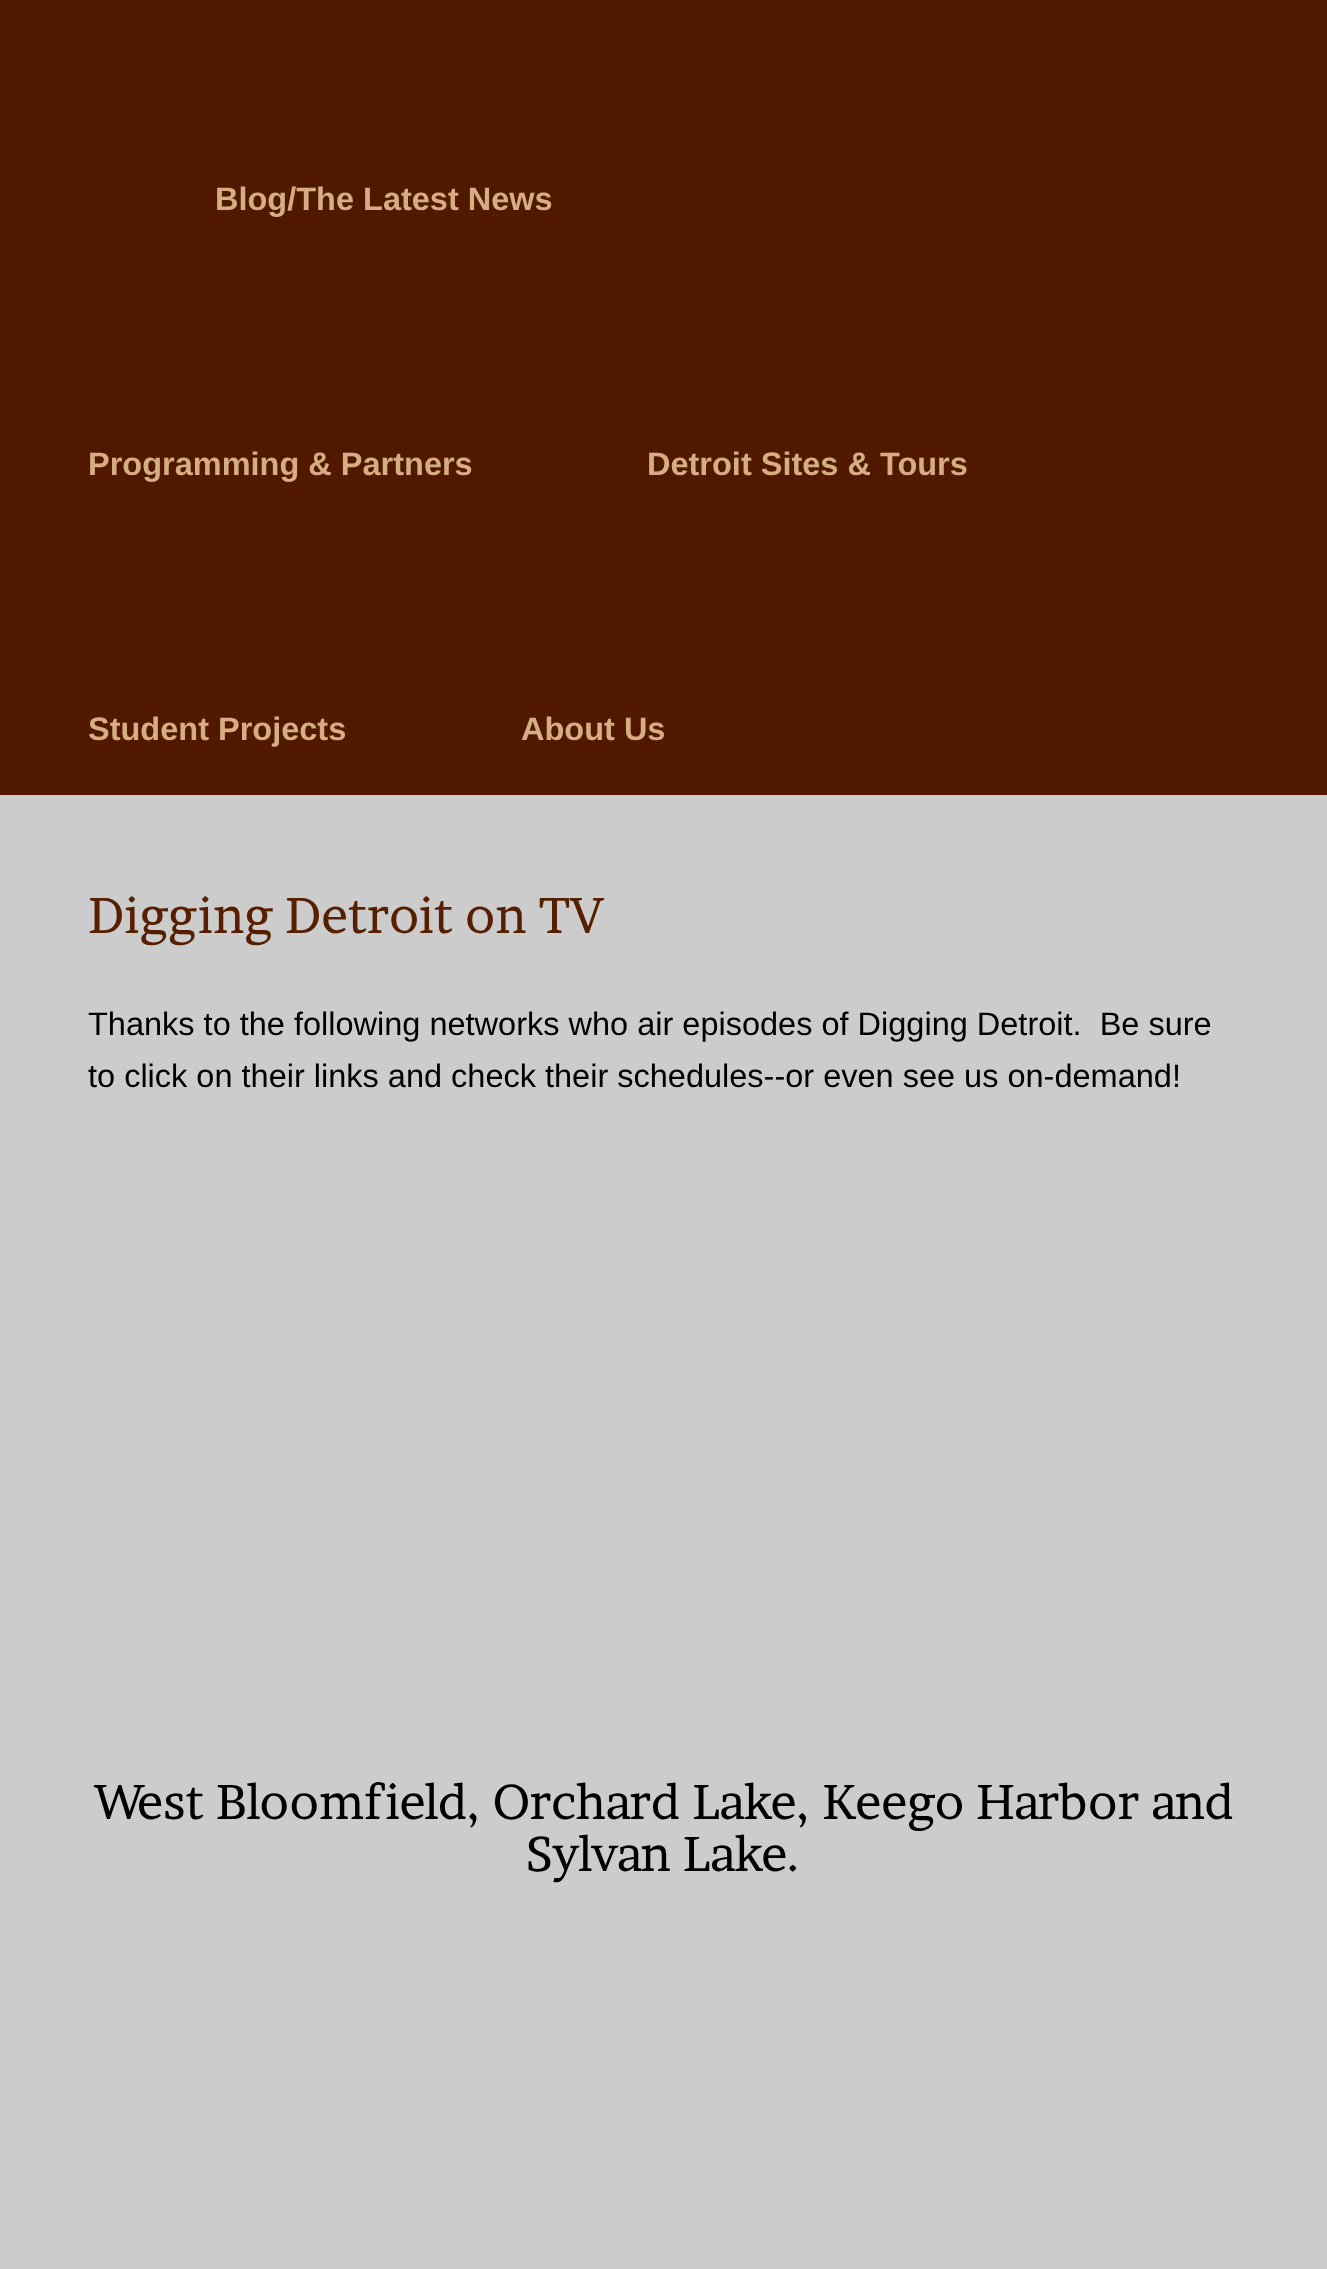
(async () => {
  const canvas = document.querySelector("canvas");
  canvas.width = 1327;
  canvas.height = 2269;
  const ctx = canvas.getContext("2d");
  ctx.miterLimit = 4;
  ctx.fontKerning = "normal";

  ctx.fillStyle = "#cccccc";
  ctx.fillRect(0, 0, 1327, 2269);
  ctx.fillStyle = "#511800";
  ctx.fillRect(0, 0, 1327, 795);
  ctx.font = "bold 32.5px Liberation Sans";
  ctx.fillStyle = "#d6ad82";
  for (const [text, x, y] of [
    ["Blog/The Latest News", 215, 210],
    ["Programming & Partners", 88, 475],
    ["Detroit Sites & Tours", 647, 475],
    ["Student Projects", 88, 740],
    ["About Us", 521, 740],
  ]) {
    ctx.fillText(text, x, y);
  }
  ctx.font = "50px Brawler";
  ctx.fillStyle = "#561f00";
  ctx.fillText("Digging Detroit on TV", 88, 933);
  ctx.font = "32.5px Liberation Sans";
  ctx.fillStyle = "#000000";
  ctx.fillText("Thanks to the following networks who air episodes of Digging Detroit.  Be sure", 88, 1035);
  ctx.fillText("to click on their links and check their schedules--or even see us on-demand!", 88, 1087);
  ctx.font = "48.75px Brawler";
  ctx.fillText("West Bloomfield, Orchard Lake, Keego Harbor and", 94, 1819);
  ctx.fillText("Sylvan Lake.", 526, 1871);
})();
